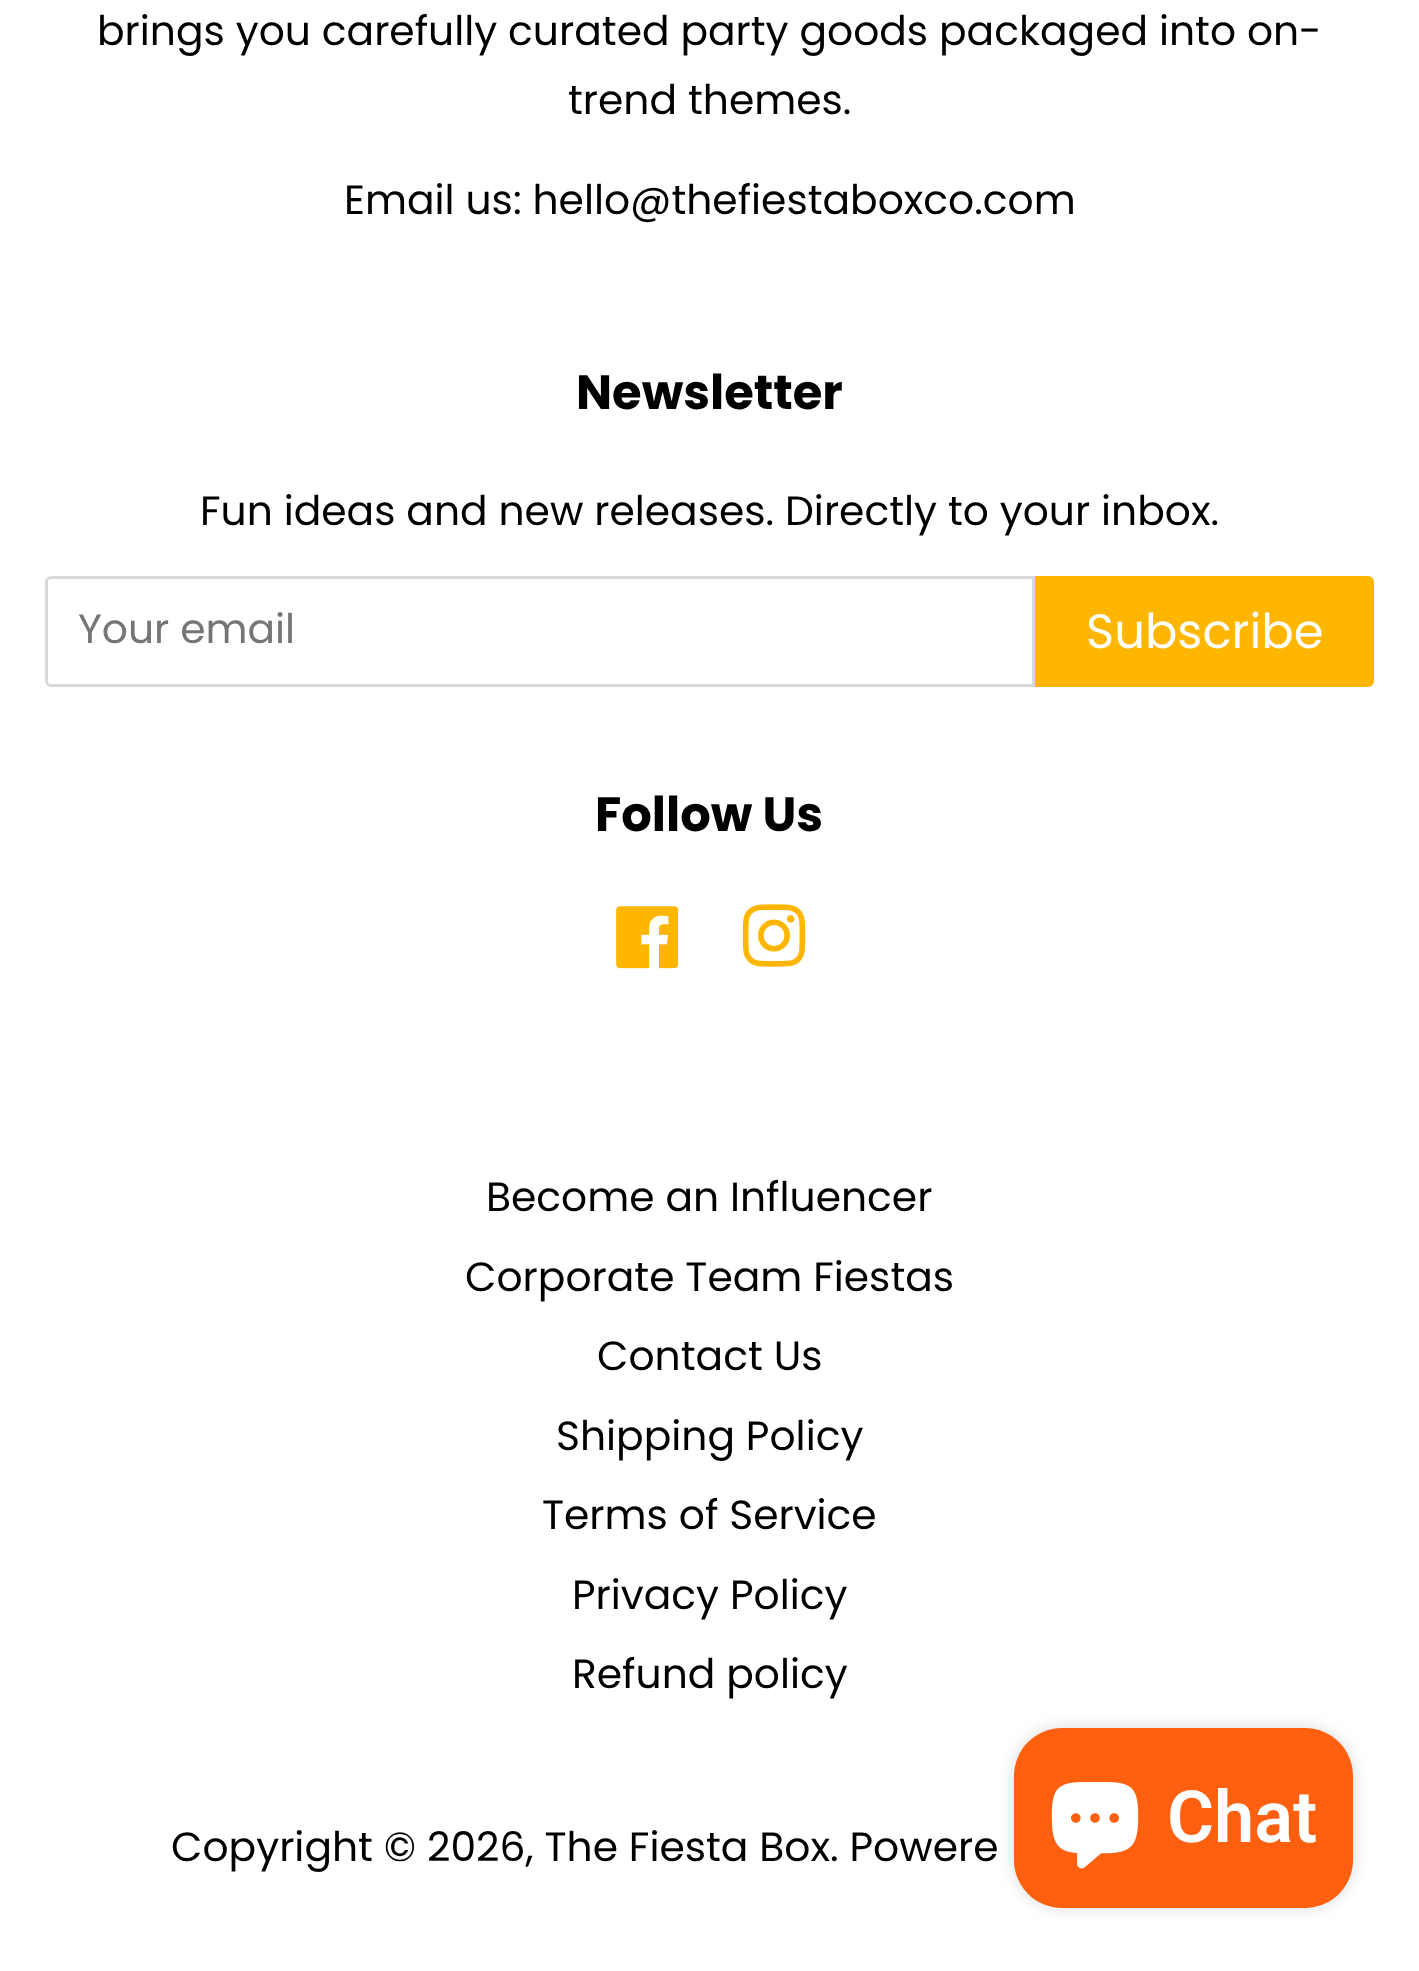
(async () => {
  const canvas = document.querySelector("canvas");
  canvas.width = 1419;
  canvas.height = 1971;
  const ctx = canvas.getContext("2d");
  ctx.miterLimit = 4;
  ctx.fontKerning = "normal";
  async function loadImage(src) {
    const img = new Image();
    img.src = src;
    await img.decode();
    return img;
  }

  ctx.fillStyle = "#ffffff";
  ctx.fillRect(0, 0, 1419, 1971);
  ctx.beginPath();
  ctx.roundRect(46.5, 577.5, 987, 108, [4.5, 0, 0, 4.5]);
  ctx.strokeStyle = "#d9d9d9";
  ctx.lineWidth = 3;
  ctx.stroke();
  ctx.fillStyle = "#ffb600";
  ctx.beginPath();
  ctx.roundRect(1035, 576, 339, 111, [0, 6, 6, 0]);
  ctx.fill();
  ctx.drawImage(await loadImage("img/1.png"), 616, 906, 63, 63);
  ctx.drawImage(await loadImage("img/2.png"), 742, 904, 64, 63);
  ctx.fillStyle = "rgba(0, 0, 0, 0.15)";
  ctx.filter = "blur(7.5px)";
  ctx.beginPath();
  ctx.roundRect(1014, 1728, 339, 180, 48);
  ctx.fill();
  ctx.filter = "none";
  ctx.fillStyle = "#ff6010";
  ctx.beginPath();
  ctx.roundRect(1014, 1728, 339, 180, 48);
  ctx.fill();
  ctx.drawImage(await loadImage("img/3.png"), 1051, 1782, 88, 87);
  ctx.font = "40.8px Poppins";
  ctx.fillStyle = "#000000";
  for (const [text, x, y] of [
    ["brings you carefully curated party goods packaged into on-", 97, 45],
    ["trend themes.", 568, 114],
    ["Email us: hello@thefiestaboxco.com", 344, 214],
  ]) {
    ctx.fillText(text, x, y);
  }
  ctx.font = "bold 48px Poppins";
  ctx.fillText("Newsletter", 576, 409);
  ctx.font = "40.8px Poppins";
  ctx.fillText("Fun ideas and new releases. Directly to your inbox.", 200, 525);
  ctx.fillStyle = "#757575";
  ctx.fillText("Your email", 78, 643);
  ctx.font = "48px Poppins";
  ctx.fillStyle = "#ffffff";
  ctx.fillText("Subscribe", 1086, 648);
  ctx.font = "bold 48px Poppins";
  ctx.fillStyle = "#000000";
  ctx.fillText("Follow Us", 595, 831);
  ctx.font = "40.8px Poppins";
  for (const [text, x, y] of [
    ["Become an Influencer", 486, 1211],
    ["Corporate Team Fiestas", 465, 1291],
    ["Contact Us", 597, 1370],
    ["Shipping Policy", 556, 1450],
    ["Terms of Service", 542, 1529],
    ["Privacy Policy", 572, 1609],
    ["Refund policy", 572, 1688],
    ["Copyright © 2026, The Fiesta Box. Powere", 171, 1861],
  ]) {
    ctx.fillText(text, x, y);
  }
  ctx.font = "600 72px Roboto";
  ctx.fillStyle = "#ffffff";
  ctx.fillText("Chat", 1167, 1842);
})();
